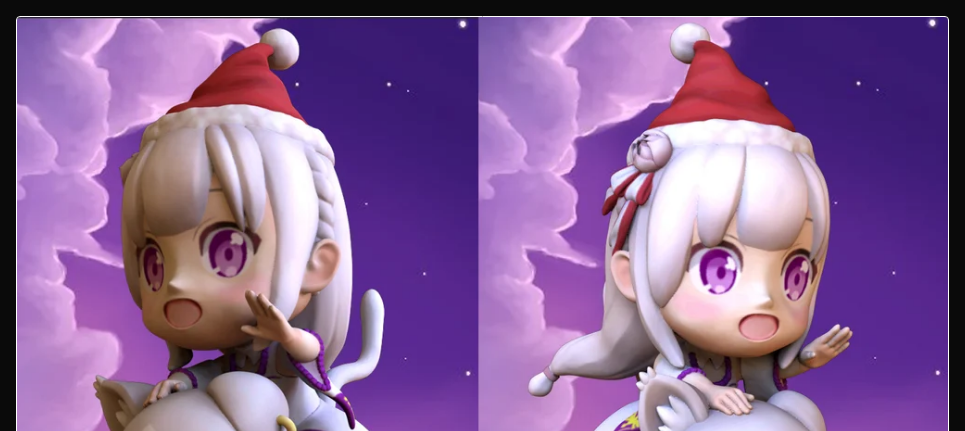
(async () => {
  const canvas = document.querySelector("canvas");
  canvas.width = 965;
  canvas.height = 431;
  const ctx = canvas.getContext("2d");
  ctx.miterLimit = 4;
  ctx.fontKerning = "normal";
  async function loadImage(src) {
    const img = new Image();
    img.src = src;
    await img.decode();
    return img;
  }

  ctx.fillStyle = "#0a0a0a";
  ctx.fillRect(0, 0, 965, 431);
  ctx.beginPath();
  ctx.roundRect(16.5, 16.5, 932, 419, 3.5);
  ctx.strokeStyle = "#ffffff";
  ctx.stroke();
  ctx.drawImage(await loadImage("img/1.png"), 17, 17, 931, 4);
  ctx.drawImage(await loadImage("img/2.png"), 17, 17, 931, 414);
})();
